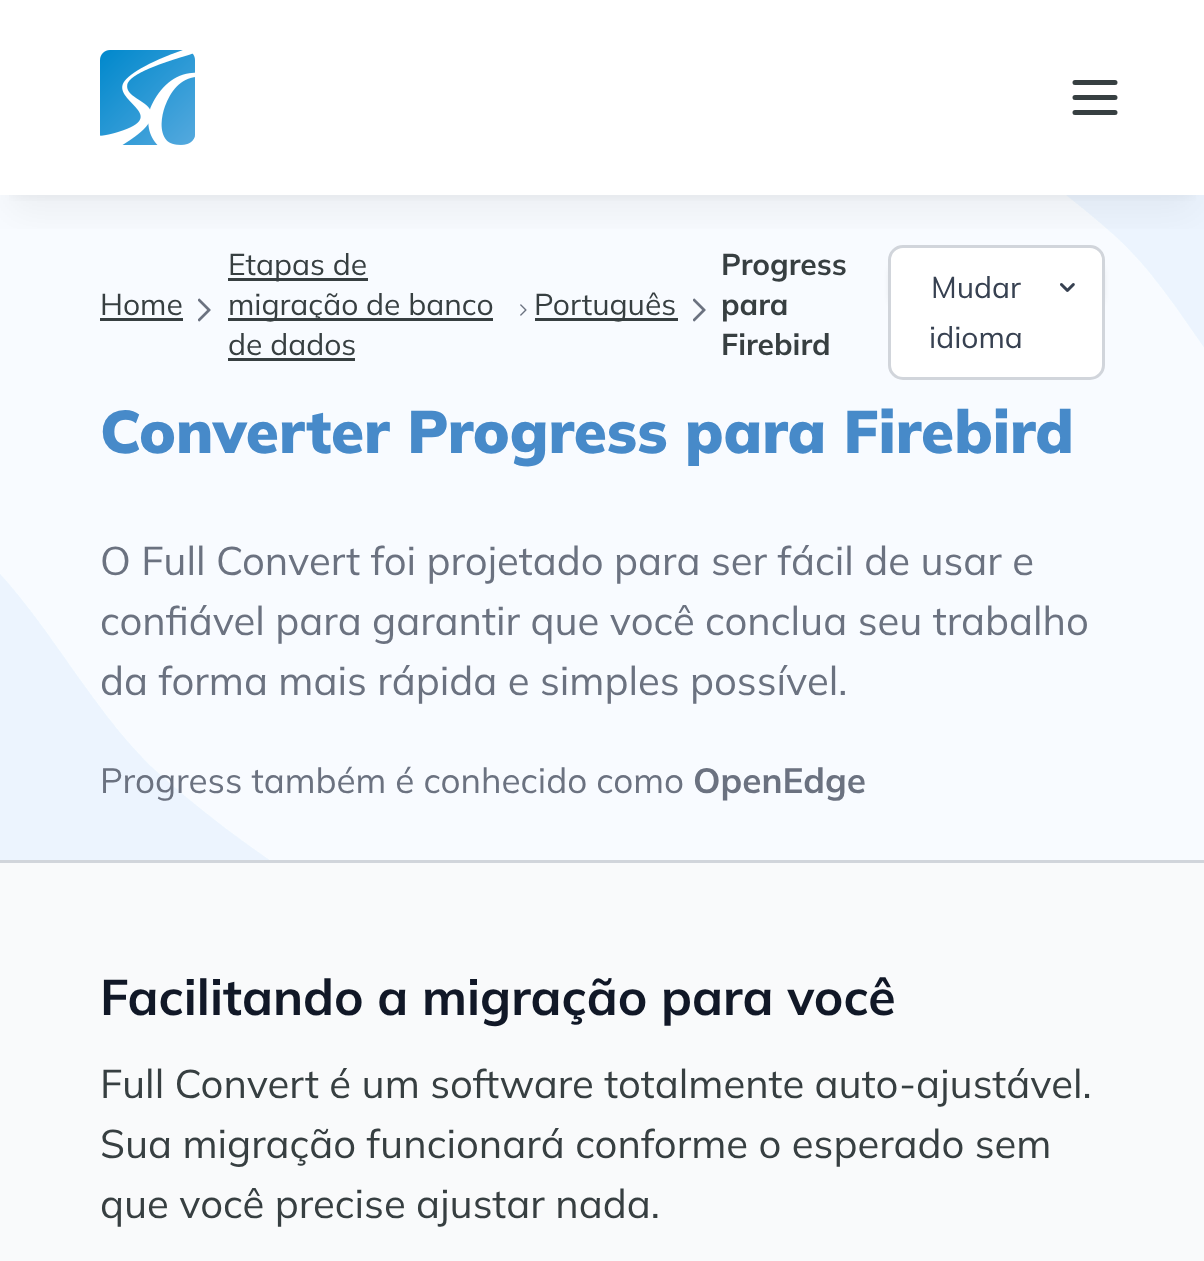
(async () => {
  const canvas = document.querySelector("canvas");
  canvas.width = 1204;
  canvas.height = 1261;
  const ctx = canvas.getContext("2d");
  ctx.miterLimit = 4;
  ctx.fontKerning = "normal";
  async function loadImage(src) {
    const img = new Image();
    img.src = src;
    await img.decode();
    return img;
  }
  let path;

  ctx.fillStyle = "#ffffff";
  ctx.fillRect(0, 0, 1204, 1261);
  ctx.save();
  ctx.beginPath();
  ctx.rect(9, 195, 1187, 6);
  ctx.clip();
  ctx.fillStyle = "rgba(0, 0, 0, 0.1)";
  ctx.filter = "blur(7.5px)";
  ctx.beginPath();
  ctx.rect(10, 20, 1185, 175);
  ctx.fill();
  ctx.filter = "none";
  ctx.restore();
  ctx.save();
  ctx.beginPath();
  ctx.rect(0, 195, 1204, 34);
  ctx.clip();
  ctx.fillStyle = "rgba(0, 0, 0, 0.1)";
  ctx.filter = "blur(19px)";
  ctx.beginPath();
  ctx.rect(8, 33, 1190, 180);
  ctx.fill();
  ctx.filter = "none";
  ctx.restore();
  ctx.drawImage(await loadImage("img/1.png"), 100, 50, 95, 95);
  path = new Path2D("M1075 82.5H1115M1075 97.5H1115M1075 112.5H1115");
  ctx.strokeStyle = "#373f41";
  ctx.lineWidth = 5;
  ctx.lineCap = "round";
  ctx.lineJoin = "round";
  ctx.stroke(path);
  ctx.drawImage(await loadImage("img/2.png"), 0, 195, 1204, 665);
  ctx.fillStyle = "#d1d5db";
  ctx.fillRect(0, 860, 1204, 3);
  ctx.fillStyle = "#373f41";
  ctx.fillRect(100, 318, 83, 3);
  ctx.drawImage(await loadImage("img/3.png"), 198, 298, 13, 24);
  for (const [x, y, w, h, color] of [
    [228, 278, 140, 3, "#373f41"],
    [228, 318, 265, 3, "#373f41"],
    [228, 358, 127, 3, "#373f41"],
  ]) {
    ctx.fillStyle = color;
    ctx.fillRect(x, y, w, h);
  }
  ctx.drawImage(await loadImage("img/4.png"), 520, 304, 7, 12);
  ctx.fillRect(535, 318, 143, 3);
  ctx.drawImage(await loadImage("img/3.png"), 693, 298, 13, 24);
  ctx.fillStyle = "rgba(0, 0, 0, 0.05)";
  ctx.filter = "blur(2.5px)";
  ctx.beginPath();
  ctx.roundRect(888, 260, 217, 50, 15);
  ctx.fill();
  ctx.filter = "none";
  ctx.fillStyle = "#ffffff";
  ctx.beginPath();
  ctx.roundRect(889.5, 246.5, 214, 132, 13.5);
  ctx.fill();
  ctx.strokeStyle = "#d1d5db";
  ctx.lineWidth = 3;
  ctx.lineJoin = "miter";
  ctx.stroke();
  ctx.drawImage(await loadImage("img/5.png"), 1060, 283, 15, 9);
  ctx.fillStyle = "#f9fafb";
  ctx.fillRect(0, 863, 1204, 398);
  ctx.font = "200 30px Mulish";
  ctx.fillStyle = "#373f41";
  for (const [text, x, y] of [
    ["Home", 100, 315],
    ["Etapas de", 228, 275],
    ["migração de banco", 228, 315],
    ["de dados", 228, 355],
    ["Português", 534, 315],
  ]) {
    ctx.fillText(text, x, y);
  }
  ctx.font = "200 30px 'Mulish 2'";
  for (const [text, x, y] of [
    ["Progress", 721, 275],
    ["para", 721, 315],
    ["Firebird", 721, 355],
  ]) {
    ctx.fillText(text, x, y);
  }
  ctx.font = "200 30px Mulish";
  ctx.fillStyle = "#374151";
  ctx.fillText("Mudar", 931, 298);
  ctx.fillText("idioma", 929, 348);
  ctx.font = "200 60px 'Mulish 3'";
  ctx.fillStyle = "#478ac9";
  ctx.fillText("Converter Progress para Firebird", 100, 453);
  ctx.font = "200 40px Mulish";
  ctx.fillStyle = "#6b7280";
  for (const [text, x, y] of [
    ["O Full Convert foi projetado para ser fácil de usar e", 100, 575],
    ["confiável para garantir que você conclua seu trabalho", 100, 635],
    ["da forma mais rápida e simples possível.", 100, 695],
  ]) {
    ctx.fillText(text, x, y);
  }
  ctx.font = "200 35px Mulish";
  ctx.fillText("Progress também é conhecido como", 100, 793);
  ctx.font = "200 35px 'Mulish 2'";
  ctx.fillText("OpenEdge", 693, 793);
  ctx.font = "200 50px 'Mulish 2'";
  ctx.fillStyle = "#111827";
  ctx.fillText("Facilitando a migração para você", 100, 1015);
  ctx.font = "200 40px Mulish";
  ctx.fillStyle = "#373f41";
  for (const [text, x, y] of [
    ["Full Convert é um software totalmente auto-ajustável.", 100, 1098],
    ["Sua migração funcionará conforme o esperado sem", 100, 1158],
    ["que você precise ajustar nada.", 100, 1218],
  ]) {
    ctx.fillText(text, x, y);
  }
})();
